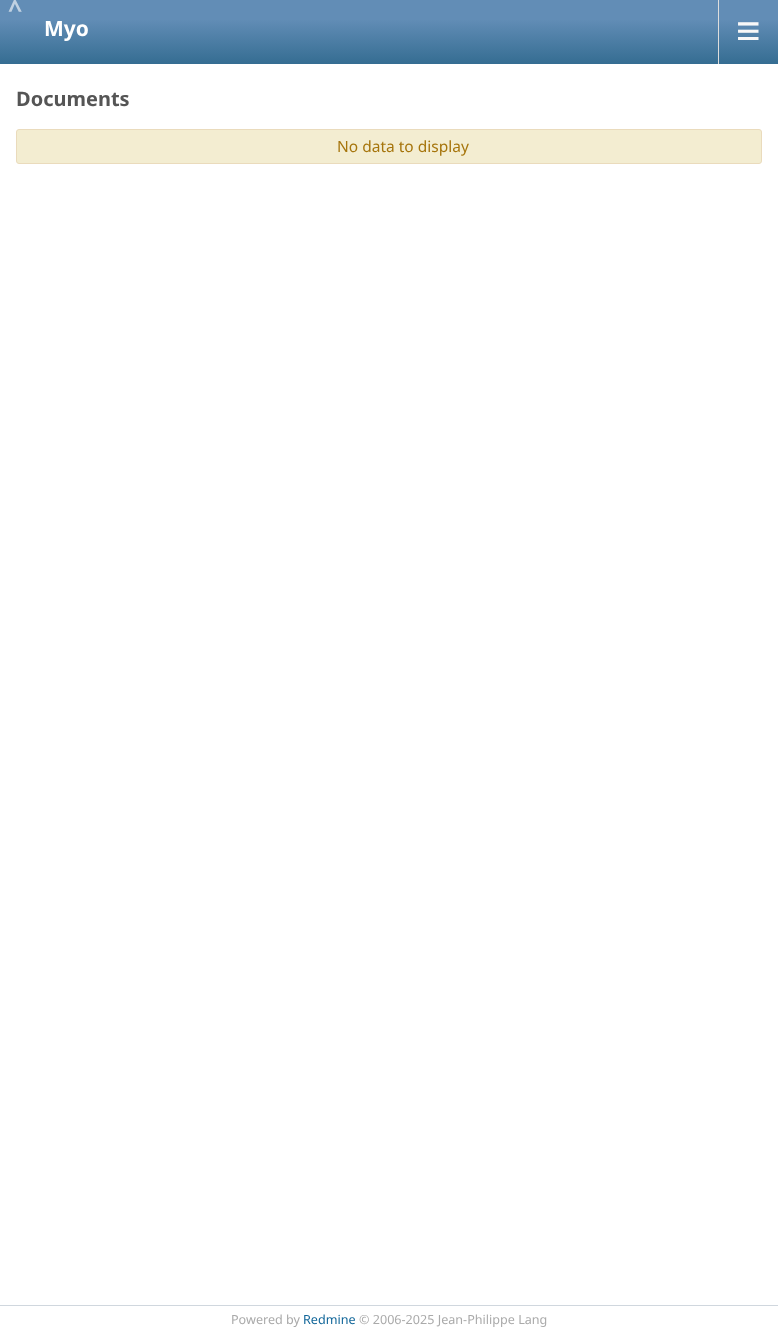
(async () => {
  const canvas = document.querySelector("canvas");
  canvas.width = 778;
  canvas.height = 1333;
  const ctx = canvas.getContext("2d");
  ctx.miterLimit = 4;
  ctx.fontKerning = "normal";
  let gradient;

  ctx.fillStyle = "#ffffff";
  ctx.fillRect(0, 0, 778, 1333);
  gradient = ctx.createLinearGradient(389, 0, 389, 64);
  gradient.addColorStop(0.3, "#628db6");
  gradient.addColorStop(1, "#356d92");
  ctx.fillStyle = gradient;
  ctx.fillRect(0, 0, 778, 64);
  ctx.fillStyle = "#dddddd";
  ctx.fillRect(718, 0, 1, 64);
  ctx.fillStyle = "#f3edd1";
  ctx.beginPath();
  ctx.roundRect(16.5, 129.5, 745, 34, 2.5);
  ctx.fill();
  ctx.strokeStyle = "#eadbbc";
  ctx.stroke();
  ctx.fillStyle = "#d0d7de";
  ctx.fillRect(0, 1305, 778, 1);
  ctx.letterSpacing = "4px";
  ctx.font = "bold 25px Noto Sans";
  ctx.fillStyle = "#c0d1e2";
  ctx.fillText("^", 8, 18);
  ctx.letterSpacing = "0px";
  ctx.font = "bold 21px Noto Sans";
  ctx.fillStyle = "#ffffff";
  ctx.fillText("Myo", 44, 36);
  ctx.font = "42px Liberation Sans";
  ctx.fillStyle = "#f8f8f8";
  ctx.fillText("≡", 736, 45);
  ctx.font = "bold 20px Noto Sans";
  ctx.fillStyle = "#555555";
  ctx.fillText("Documents", 16, 106);
  ctx.font = "15.5px Noto Sans";
  ctx.fillStyle = "#a6750c";
  ctx.fillText("No data to display", 337, 152);
  ctx.font = "12.6px Noto Sans";
  ctx.fillStyle = "#aaaaaa";
  ctx.fillText("Powered by", 231, 1324);
  ctx.fillStyle = "#116699";
  ctx.fillText("Redmine", 303, 1324);
  ctx.fillStyle = "#aaaaaa";
  ctx.fillText("© 2006-2025 Jean-Philippe Lang", 359, 1324);
})();
